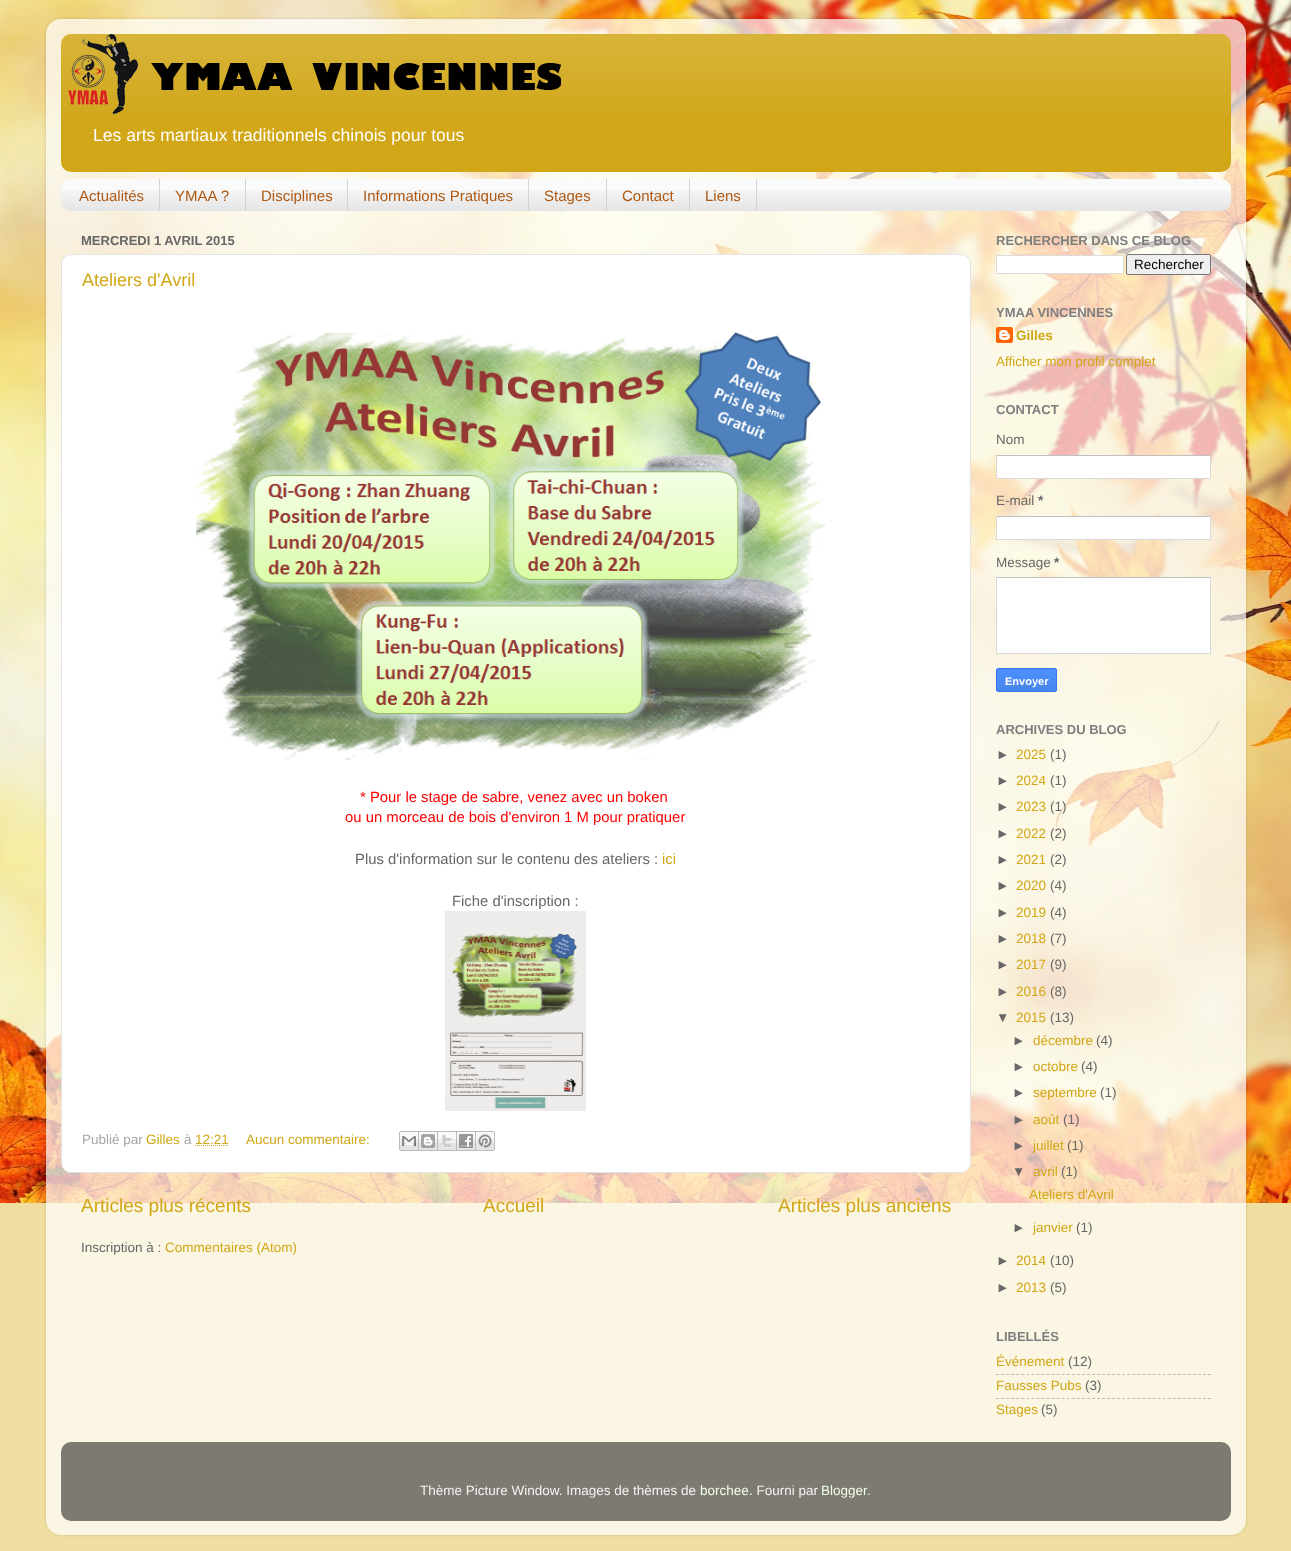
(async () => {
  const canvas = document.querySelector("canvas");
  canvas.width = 1291;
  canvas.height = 1551;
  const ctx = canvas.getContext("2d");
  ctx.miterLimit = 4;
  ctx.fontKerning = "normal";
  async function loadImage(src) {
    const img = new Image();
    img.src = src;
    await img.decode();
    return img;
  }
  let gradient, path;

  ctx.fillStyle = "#f0dea0";
  ctx.fillRect(0, 0, 1291, 1551);
  ctx.drawImage(await loadImage("img/1.png"), 0, 0, 1291, 1203);
  ctx.save();
  path = new Path2D("M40 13H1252V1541H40ZM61 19H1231C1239.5 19 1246 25.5 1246 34V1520C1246 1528.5 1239.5 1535 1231 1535H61C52.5 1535 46 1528.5 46 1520V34C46 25.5 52.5 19 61 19Z");
  ctx.clip(path, "evenodd");
  ctx.fillStyle = "rgba(0, 0, 0, 0.15)";
  ctx.filter = "blur(1.5px)";
  ctx.beginPath();
  ctx.roundRect(46, 19, 1200, 1516, 15);
  ctx.fill();
  ctx.filter = "none";
  ctx.restore();
  ctx.drawImage(await loadImage("img/2.png"), 46, 19, 1200, 1516);
  ctx.fillStyle = "#d1a717";
  ctx.beginPath();
  ctx.roundRect(61, 34, 1170, 138, 10);
  ctx.fill();
  ctx.drawImage(await loadImage("img/3.png"), 61, 34, 1170, 84);
  ctx.drawImage(await loadImage("img/4.png"), 68, 34, 493, 80);
  ctx.fillStyle = "#fafafa";
  ctx.beginPath();
  ctx.roundRect(61, 179, 1170, 32, 10);
  ctx.fill();
  ctx.drawImage(await loadImage("img/5.png"), 61, 190, 1170, 21);
  for (const [x, y, w, h, color] of [
    [159, 179, 1, 32, "#d3d3d3"],
    [245, 179, 1, 32, "#d3d3d3"],
    [347, 179, 1, 32, "#d3d3d3"],
    [528, 179, 1, 32, "#d3d3d3"],
    [606, 179, 1, 32, "#d3d3d3"],
    [689, 179, 1, 32, "#d3d3d3"],
    [756, 179, 1, 32, "#d3d3d3"],
  ]) {
    ctx.fillStyle = color;
    ctx.fillRect(x, y, w, h);
  }
  ctx.fillStyle = "#ffffff";
  ctx.beginPath();
  ctx.roundRect(61.5, 254.5, 909, 918, 9.5);
  ctx.fill();
  ctx.strokeStyle = "#e3e3e3";
  ctx.stroke();
  ctx.drawImage(await loadImage("img/6.png"), 196, 332, 637, 428);
  ctx.drawImage(await loadImage("img/7.png"), 445, 911, 141, 200);
  path = new Path2D("M195 1145.5H228.5");
  ctx.strokeStyle = "#d1a717";
  ctx.setLineDash([1, 1]);
  ctx.stroke(path);
  ctx.drawImage(await loadImage("img/8.png"), 399, 1131, 20, 20);
  ctx.drawImage(await loadImage("img/9.png"), 419, 1131, 19, 20);
  ctx.drawImage(await loadImage("img/10.png"), 438, 1131, 19, 20);
  ctx.drawImage(await loadImage("img/11.png"), 457, 1131, 19, 20);
  ctx.drawImage(await loadImage("img/12.png"), 476, 1131, 19, 20);
  ctx.beginPath();
  ctx.rect(996.5, 255.5, 127, 18);
  ctx.fill();
  ctx.strokeStyle = "#dddddd";
  ctx.setLineDash([]);
  ctx.stroke();
  ctx.fillStyle = "#efefef";
  ctx.beginPath();
  ctx.roundRect(1126.5, 254.5, 84, 20, 1.5);
  ctx.fill();
  ctx.strokeStyle = "#767676";
  ctx.stroke();
  ctx.drawImage(await loadImage("img/13.png"), 996, 327, 17, 16);
  for (const [x, y, w, h, color] of [
    [997, 456, 213, 22, "#ffffff"],
    [996, 455, 215, 1, "#c0c0c0"],
    [1210, 455, 1, 24, "#d9d9d9"],
    [996, 478, 215, 1, "#d9d9d9"],
    [996, 455, 1, 24, "#d9d9d9"],
    [997, 517, 213, 22, "#ffffff"],
    [996, 516, 215, 1, "#c0c0c0"],
    [1210, 516, 1, 24, "#d9d9d9"],
    [996, 539, 215, 1, "#d9d9d9"],
    [996, 516, 1, 24, "#d9d9d9"],
    [997, 578, 213, 75, "#ffffff"],
    [996, 577, 215, 1, "#c0c0c0"],
    [1210, 577, 1, 77, "#d9d9d9"],
    [996, 653, 215, 1, "#d9d9d9"],
    [996, 577, 1, 77, "#d9d9d9"],
  ]) {
    ctx.fillStyle = color;
    ctx.fillRect(x, y, w, h);
  }
  ctx.save();
  ctx.beginPath();
  ctx.roundRect(996, 668, 61, 24, 2);
  ctx.clip();
  gradient = ctx.createLinearGradient(1027, 669, 1027, 691);
  gradient.addColorStop(0, "#4d90fe");
  gradient.addColorStop(1, "#4787ed");
  ctx.fillStyle = gradient;
  ctx.fillRect(996, 669, 61, 22);
  ctx.restore();
  ctx.beginPath();
  ctx.roundRect(996.5, 668.5, 60, 23, 1.5);
  ctx.strokeStyle = "#3079ed";
  ctx.stroke();
  path = new Path2D("M996 1374.5H1211");
  ctx.strokeStyle = "#bdbbb1";
  ctx.setLineDash([3, 2.05]);
  ctx.stroke(path);
  path = new Path2D("M996 1398.5H1211");
  ctx.stroke(path);
  ctx.drawImage(await loadImage("img/14.png"), 61, 1442, 1170, 79);
  ctx.font = "17.55px Liberation Sans";
  ctx.fillStyle = "#ffffff";
  ctx.fillText("Les arts martiaux traditionnels chinois pour tous", 93, 141);
  ctx.font = "15px Liberation Sans";
  ctx.fillStyle = "#ae5913";
  for (const [text, x, y] of [
    ["Actualités", 79, 201],
    ["YMAA ?", 175, 201],
    ["Disciplines", 261, 201],
    ["Informations Pratiques", 363, 201],
    ["Stages", 544, 201],
    ["Contact", 622, 201],
    ["Liens", 705, 201],
  ]) {
    ctx.fillText(text, x, y);
  }
  ctx.font = "bold 13px Liberation Sans";
  ctx.fillStyle = "#676767";
  ctx.fillText("MERCREDI 1 AVRIL 2015", 81, 245);
  ctx.font = "18px Liberation Sans";
  ctx.fillStyle = "#d1a717";
  ctx.fillText("Ateliers d'Avril", 82, 286);
  ctx.font = "14.85px Liberation Sans";
  ctx.fillStyle = "#ff0000";
  ctx.fillText("* Pour le stage de sabre, venez avec un boken", 360, 802);
  ctx.fillText("ou un morceau de bois d'environ 1 M pour pratiquer", 345, 822);
  ctx.fillStyle = "#676767";
  ctx.fillText("Plus d'information sur le contenu des ateliers :", 355, 864);
  ctx.fillStyle = "#d1a717";
  ctx.fillText("ici", 662, 864);
  ctx.fillStyle = "#676767";
  ctx.fillText("Fiche d'inscription :", 452, 906);
  ctx.font = "13.5px Liberation Sans";
  ctx.fillStyle = "#a5a5a5";
  ctx.fillText("Publié par", 82, 1144);
  ctx.fillStyle = "#d1a717";
  ctx.fillText("Gilles", 146, 1144);
  ctx.fillStyle = "#a5a5a5";
  ctx.fillText("à", 184, 1144);
  ctx.fillStyle = "#d1a717";
  ctx.fillText("12:21", 195, 1144);
  ctx.fillText("Aucun commentaire:", 246, 1144);
  ctx.font = "19px Liberation Sans";
  for (const [text, x, y] of [
    ["Articles plus récents", 81, 1212],
    ["Accueil", 483, 1212],
    ["Articles plus anciens", 778, 1212],
  ]) {
    ctx.fillText(text, x, y);
  }
  ctx.font = "13.5px Liberation Sans";
  ctx.fillStyle = "#676767";
  ctx.fillText("Inscription à :", 81, 1252);
  ctx.fillStyle = "#d1a717";
  ctx.fillText("Commentaires (Atom)", 165, 1252);
  ctx.font = "bold 13px Liberation Sans";
  ctx.fillStyle = "#7e7e7e";
  ctx.fillText("RECHERCHER DANS CE BLOG", 996, 245);
  ctx.font = "13.5px Liberation Sans";
  ctx.fillStyle = "#000000";
  ctx.fillText("Rechercher", 1134, 269);
  ctx.font = "bold 13px Liberation Sans";
  ctx.fillStyle = "#7e7e7e";
  ctx.fillText("YMAA VINCENNES", 996, 317);
  ctx.font = "bold 13.5px Liberation Sans";
  ctx.fillStyle = "#d1a717";
  ctx.fillText("Gilles", 1016, 340);
  ctx.font = "13.5px Liberation Sans";
  ctx.fillText("Afficher mon profil complet", 996, 366);
  ctx.font = "bold 13px Liberation Sans";
  ctx.fillStyle = "#7e7e7e";
  ctx.fillText("CONTACT", 996, 414);
  ctx.font = "13.5px Liberation Sans";
  ctx.fillStyle = "#676767";
  ctx.fillText("Nom", 996, 444);
  ctx.fillText("E-mail", 996, 505);
  ctx.font = "bold 13.5px Liberation Sans";
  ctx.fillText("*", 1038, 505);
  ctx.font = "13.5px Liberation Sans";
  ctx.fillText("Message", 996, 567);
  ctx.font = "bold 13.5px Liberation Sans";
  ctx.fillText("*", 1054, 567);
  ctx.font = "bold 11px Liberation Sans";
  ctx.fillStyle = "#ffffff";
  ctx.fillText("Envoyer", 1005, 685);
  ctx.font = "bold 13px Liberation Sans";
  ctx.fillStyle = "#7e7e7e";
  ctx.fillText("ARCHIVES DU BLOG", 996, 734);
  ctx.font = "13.5px Liberation Sans";
  ctx.fillStyle = "#676767";
  ctx.fillText("►", 996, 759);
  ctx.fillStyle = "#d1a717";
  ctx.fillText("2025", 1016, 759);
  ctx.fillStyle = "#676767";
  ctx.fillText("(1)", 1050, 759);
  ctx.fillText("►", 996, 785);
  ctx.fillStyle = "#d1a717";
  ctx.fillText("2024", 1016, 785);
  ctx.fillStyle = "#676767";
  ctx.fillText("(1)", 1050, 785);
  ctx.fillText("►", 996, 811);
  ctx.fillStyle = "#d1a717";
  ctx.fillText("2023", 1016, 811);
  ctx.fillStyle = "#676767";
  ctx.fillText("(1)", 1050, 811);
  ctx.fillText("►", 996, 838);
  ctx.fillStyle = "#d1a717";
  ctx.fillText("2022", 1016, 838);
  ctx.fillStyle = "#676767";
  ctx.fillText("(2)", 1050, 838);
  ctx.fillText("►", 996, 864);
  ctx.fillStyle = "#d1a717";
  ctx.fillText("2021", 1016, 864);
  ctx.fillStyle = "#676767";
  ctx.fillText("(2)", 1050, 864);
  ctx.fillText("►", 996, 890);
  ctx.fillStyle = "#d1a717";
  ctx.fillText("2020", 1016, 890);
  ctx.fillStyle = "#676767";
  ctx.fillText("(4)", 1050, 890);
  ctx.fillText("►", 996, 917);
  ctx.fillStyle = "#d1a717";
  ctx.fillText("2019", 1016, 917);
  ctx.fillStyle = "#676767";
  ctx.fillText("(4)", 1050, 917);
  ctx.fillText("►", 996, 943);
  ctx.fillStyle = "#d1a717";
  ctx.fillText("2018", 1016, 943);
  ctx.fillStyle = "#676767";
  ctx.fillText("(7)", 1050, 943);
  ctx.fillText("►", 996, 969);
  ctx.fillStyle = "#d1a717";
  ctx.fillText("2017", 1016, 969);
  ctx.fillStyle = "#676767";
  ctx.fillText("(9)", 1050, 969);
  ctx.fillText("►", 996, 996);
  ctx.fillStyle = "#d1a717";
  ctx.fillText("2016", 1016, 996);
  ctx.fillStyle = "#676767";
  ctx.fillText("(8)", 1050, 996);
  ctx.fillText("▼", 996, 1022);
  ctx.fillStyle = "#d1a717";
  ctx.fillText("2015", 1016, 1022);
  ctx.fillStyle = "#676767";
  ctx.fillText("(13)", 1050, 1022);
  ctx.fillText("►", 1012, 1045);
  ctx.fillStyle = "#d1a717";
  ctx.fillText("décembre", 1033, 1045);
  ctx.fillStyle = "#676767";
  ctx.fillText("(4)", 1096, 1045);
  ctx.fillText("►", 1012, 1071);
  ctx.fillStyle = "#d1a717";
  ctx.fillText("octobre", 1033, 1071);
  ctx.fillStyle = "#676767";
  ctx.fillText("(4)", 1081, 1071);
  ctx.fillText("►", 1012, 1097);
  ctx.fillStyle = "#d1a717";
  ctx.fillText("septembre", 1033, 1097);
  ctx.fillStyle = "#676767";
  ctx.fillText("(1)", 1100, 1097);
  ctx.fillText("►", 1012, 1124);
  ctx.fillStyle = "#d1a717";
  ctx.fillText("août", 1033, 1124);
  ctx.fillStyle = "#676767";
  ctx.fillText("(1)", 1063, 1124);
  ctx.fillText("►", 1012, 1150);
  ctx.fillStyle = "#d1a717";
  ctx.fillText("juillet", 1033, 1150);
  ctx.fillStyle = "#676767";
  ctx.fillText("(1)", 1067, 1150);
  ctx.fillText("▼", 1012, 1176);
  ctx.fillStyle = "#d1a717";
  ctx.fillText("avril", 1033, 1176);
  ctx.fillStyle = "#676767";
  ctx.fillText("(1)", 1061, 1176);
  ctx.fillStyle = "#d1a717";
  ctx.fillText("Ateliers d'Avril", 1029, 1199);
  ctx.fillStyle = "#676767";
  ctx.fillText("►", 1012, 1232);
  ctx.fillStyle = "#d1a717";
  ctx.fillText("janvier", 1033, 1232);
  ctx.fillStyle = "#676767";
  ctx.fillText("(1)", 1076, 1232);
  ctx.fillText("►", 996, 1265);
  ctx.fillStyle = "#d1a717";
  ctx.fillText("2014", 1016, 1265);
  ctx.fillStyle = "#676767";
  ctx.fillText("(10)", 1050, 1265);
  ctx.fillText("►", 996, 1292);
  ctx.fillStyle = "#d1a717";
  ctx.fillText("2013", 1016, 1292);
  ctx.fillStyle = "#676767";
  ctx.fillText("(5)", 1050, 1292);
  ctx.font = "bold 13px Liberation Sans";
  ctx.fillStyle = "#7e7e7e";
  ctx.fillText("LIBELLÉS", 996, 1341);
  ctx.font = "13.5px Liberation Sans";
  ctx.fillStyle = "#d1a717";
  ctx.fillText("Événement", 996, 1366);
  ctx.fillStyle = "#676767";
  ctx.fillText("(12)", 1068, 1366);
  ctx.fillStyle = "#d1a717";
  ctx.fillText("Fausses Pubs", 996, 1390);
  ctx.fillStyle = "#676767";
  ctx.fillText("(3)", 1085, 1390);
  ctx.fillStyle = "#d1a717";
  ctx.fillText("Stages", 996, 1414);
  ctx.fillStyle = "#676767";
  ctx.fillText("(5)", 1041, 1414);
  ctx.fillStyle = "#f3f3f3";
  ctx.fillText("Thème Picture Window. Images de thèmes de", 420, 1495);
  ctx.fillStyle = "#f0ffe8";
  ctx.fillText("borchee", 700, 1495);
  ctx.fillStyle = "#f3f3f3";
  ctx.fillText(". Fourni par", 749, 1495);
  ctx.fillStyle = "#f0ffe8";
  ctx.fillText("Blogger", 821, 1495);
  ctx.fillStyle = "#f3f3f3";
  ctx.fillText(".", 867, 1495);
})();
